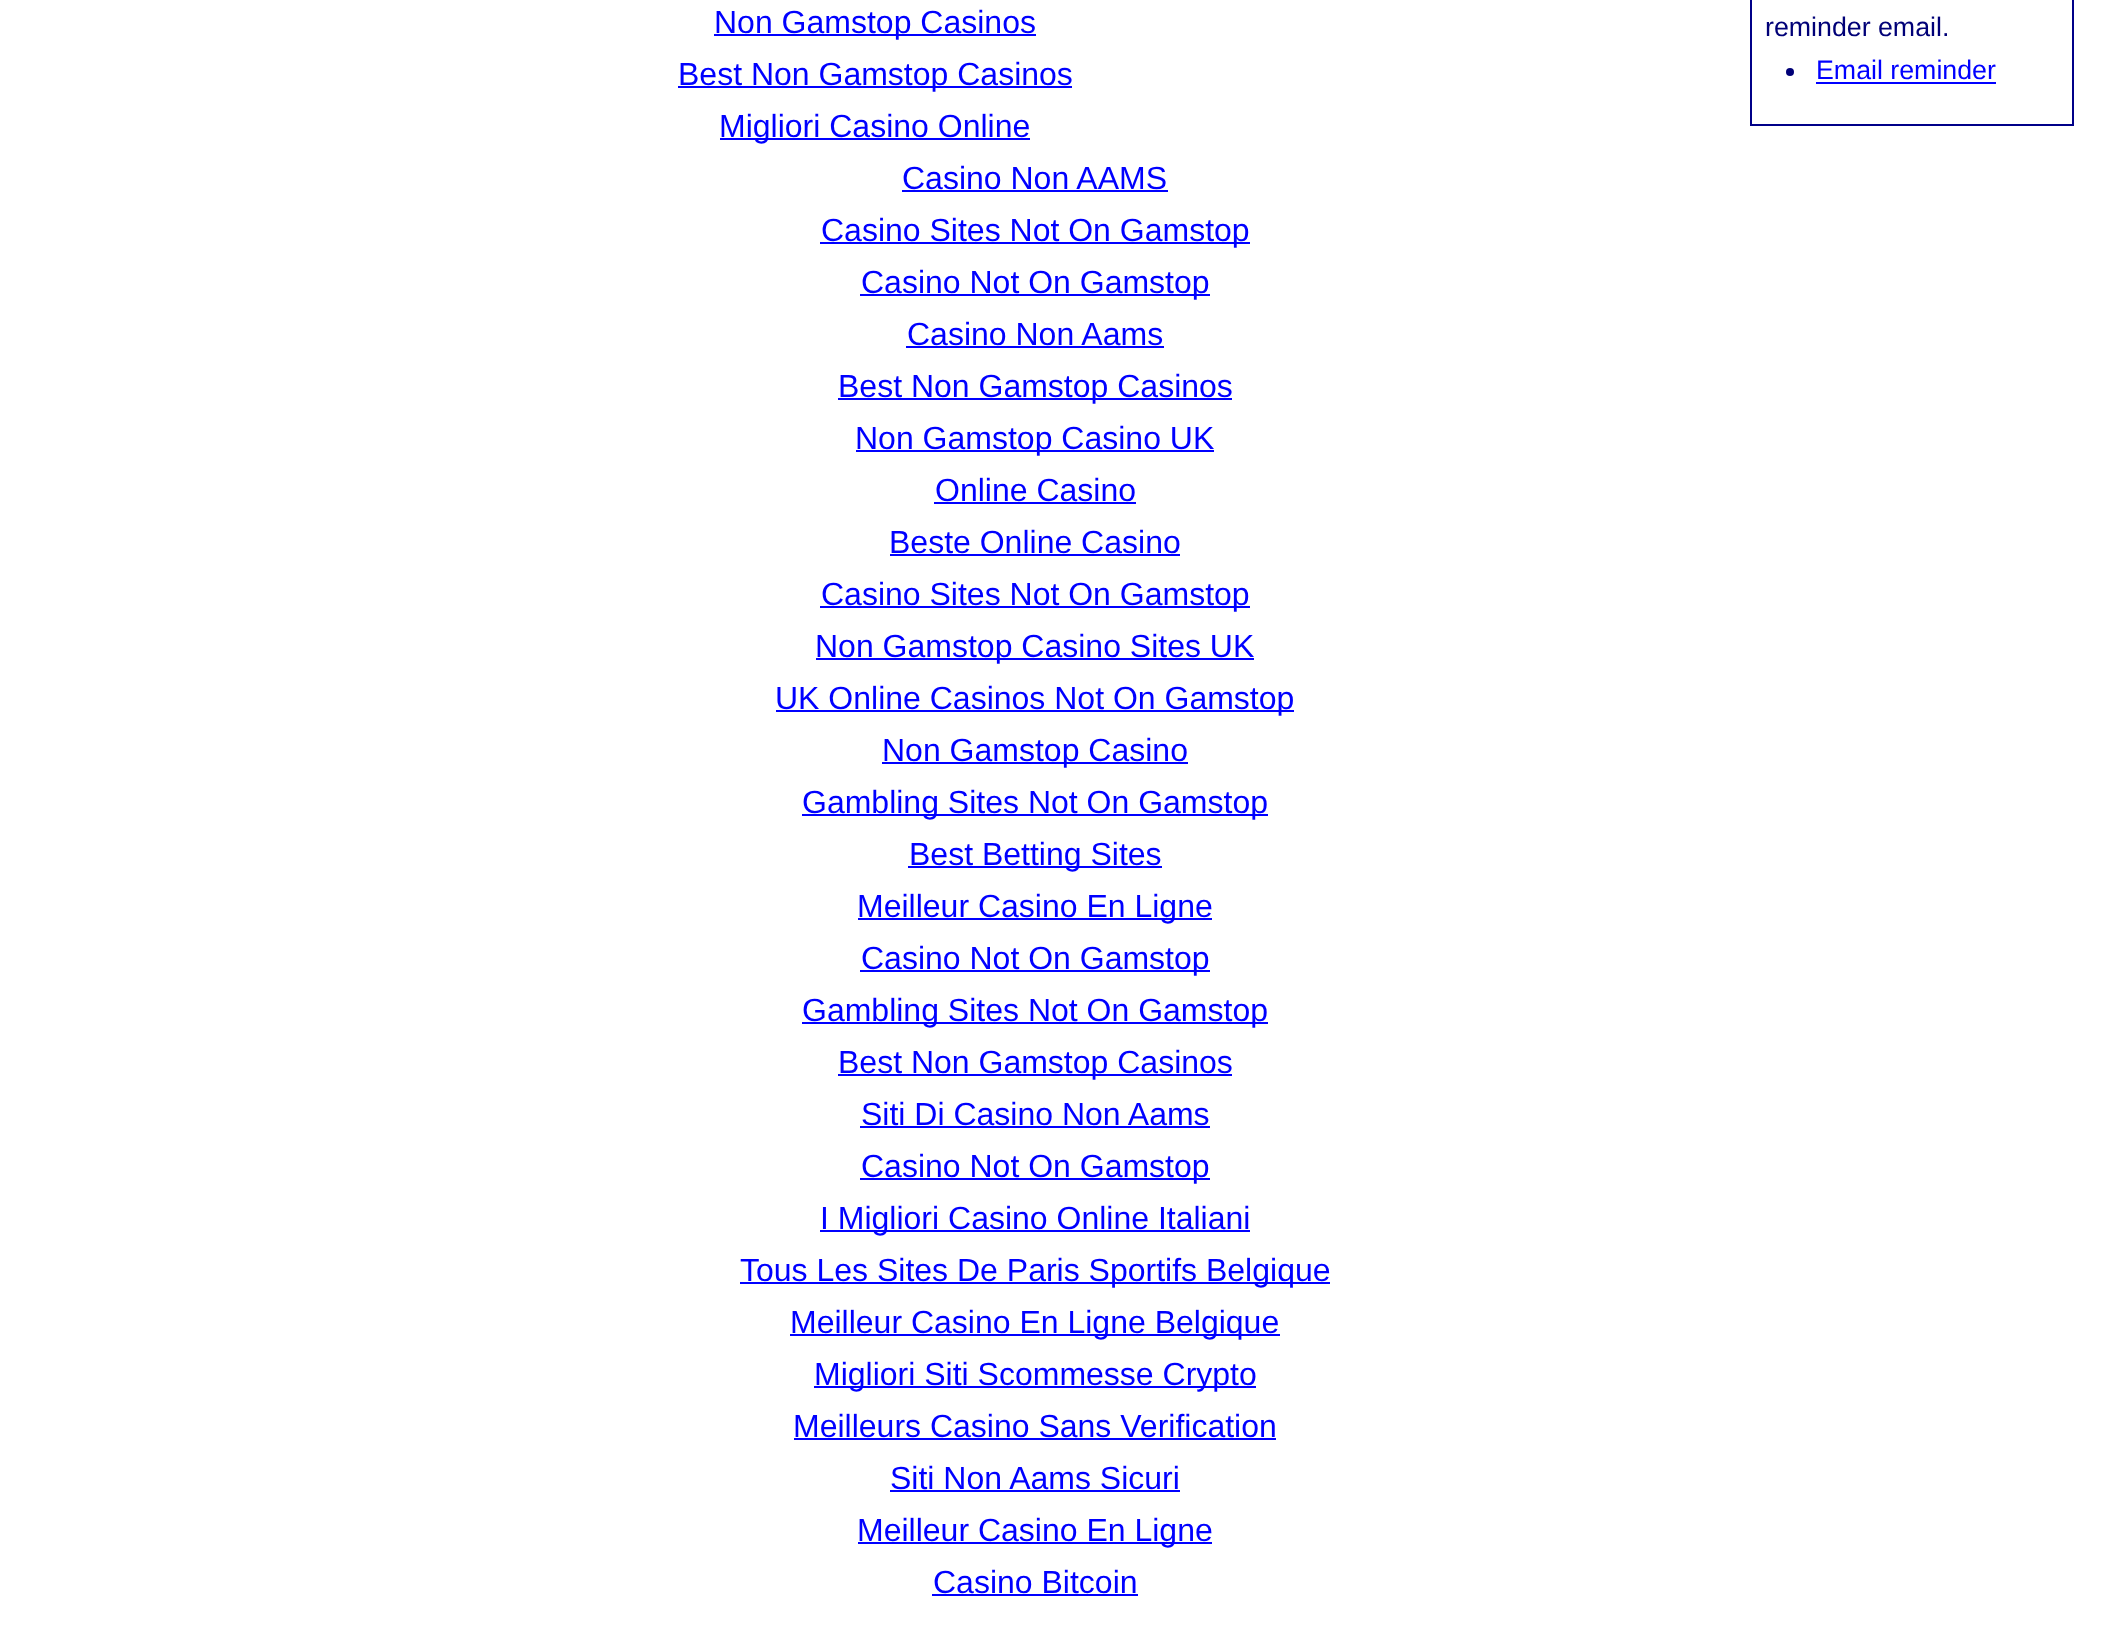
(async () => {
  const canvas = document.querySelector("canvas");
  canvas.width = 2102;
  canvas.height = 1635;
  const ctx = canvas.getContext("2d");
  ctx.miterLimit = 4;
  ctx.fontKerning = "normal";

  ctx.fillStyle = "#ffffff";
  ctx.fillRect(0, 0, 2102, 1635);
  for (const [x, y, w, h, color] of [
    [714, 34, 322, 2, "#0000ff"],
    [678, 86, 394, 2, "#0000ff"],
    [720, 138, 310, 2, "#0000ff"],
    [902, 190, 266, 2, "#0000ff"],
    [820, 242, 430, 2, "#0000ff"],
    [860, 294, 350, 2, "#0000ff"],
    [906, 346, 258, 2, "#0000ff"],
    [838, 398, 394, 2, "#0000ff"],
    [856, 450, 358, 2, "#0000ff"],
    [934, 502, 202, 2, "#0000ff"],
    [890, 554, 290, 2, "#0000ff"],
    [820, 606, 430, 2, "#0000ff"],
    [816, 658, 438, 2, "#0000ff"],
    [776, 710, 518, 2, "#0000ff"],
    [882, 762, 306, 2, "#0000ff"],
    [802, 814, 466, 2, "#0000ff"],
    [908, 866, 254, 2, "#0000ff"],
    [858, 918, 354, 2, "#0000ff"],
    [860, 970, 350, 2, "#0000ff"],
    [802, 1022, 466, 2, "#0000ff"],
    [838, 1074, 394, 2, "#0000ff"],
    [860, 1126, 350, 2, "#0000ff"],
    [860, 1178, 350, 2, "#0000ff"],
    [820, 1230, 430, 2, "#0000ff"],
    [740, 1282, 590, 2, "#0000ff"],
    [790, 1334, 490, 2, "#0000ff"],
    [814, 1386, 442, 2, "#0000ff"],
    [794, 1438, 482, 2, "#0000ff"],
    [890, 1490, 290, 2, "#0000ff"],
    [858, 1542, 354, 2, "#0000ff"],
    [932, 1594, 206, 2, "#0000ff"],
  ]) {
    ctx.fillStyle = color;
    ctx.fillRect(x, y, w, h);
  }
  ctx.strokeStyle = "#000088";
  ctx.lineWidth = 2;
  ctx.strokeRect(1751, -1, 322, 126);
  ctx.fillStyle = "#000077";
  ctx.beginPath();
  ctx.arc(1790, 72, 4, 0, Math.PI * 2);
  ctx.fill();
  ctx.fillStyle = "#0000ff";
  ctx.fillRect(1816, 82, 180, 2);
  ctx.font = "32px Liberation Sans";
  for (const [text, x, y] of [
    ["Non Gamstop Casinos", 714, 33],
    ["Best Non Gamstop Casinos", 678, 85],
    ["Migliori Casino Online", 719, 137],
    ["Casino Non AAMS", 902, 189],
    ["Casino Sites Not On Gamstop", 821, 241],
    ["Casino Not On Gamstop", 861, 293],
    ["Casino Non Aams", 907, 345],
    ["Best Non Gamstop Casinos", 838, 397],
    ["Non Gamstop Casino UK", 855, 449],
    ["Online Casino", 935, 501],
    ["Beste Online Casino", 889, 553],
    ["Casino Sites Not On Gamstop", 821, 605],
    ["Non Gamstop Casino Sites UK", 815, 657],
    ["UK Online Casinos Not On Gamstop", 775, 709],
    ["Non Gamstop Casino", 882, 761],
    ["Gambling Sites Not On Gamstop", 802, 813],
    ["Best Betting Sites", 909, 865],
    ["Meilleur Casino En Ligne", 857, 917],
    ["Casino Not On Gamstop", 861, 969],
    ["Gambling Sites Not On Gamstop", 802, 1021],
    ["Best Non Gamstop Casinos", 838, 1073],
    ["Siti Di Casino Non Aams", 861, 1125],
    ["Casino Not On Gamstop", 861, 1177],
    ["I Migliori Casino Online Italiani", 820, 1229],
    ["Tous Les Sites De Paris Sportifs Belgique", 740, 1281],
    ["Meilleur Casino En Ligne Belgique", 790, 1333],
    ["Migliori Siti Scommesse Crypto", 814, 1385],
    ["Meilleurs Casino Sans Verification", 793, 1437],
    ["Siti Non Aams Sicuri", 890, 1489],
    ["Meilleur Casino En Ligne", 857, 1541],
    ["Casino Bitcoin", 933, 1593],
  ]) {
    ctx.fillText(text, x, y);
  }
  ctx.font = "26.75px Liberation Sans";
  ctx.fillStyle = "#000077";
  ctx.fillText("reminder email.", 1765, 36);
  ctx.fillStyle = "#0000ff";
  ctx.fillText("Email reminder", 1816, 79);
})();
